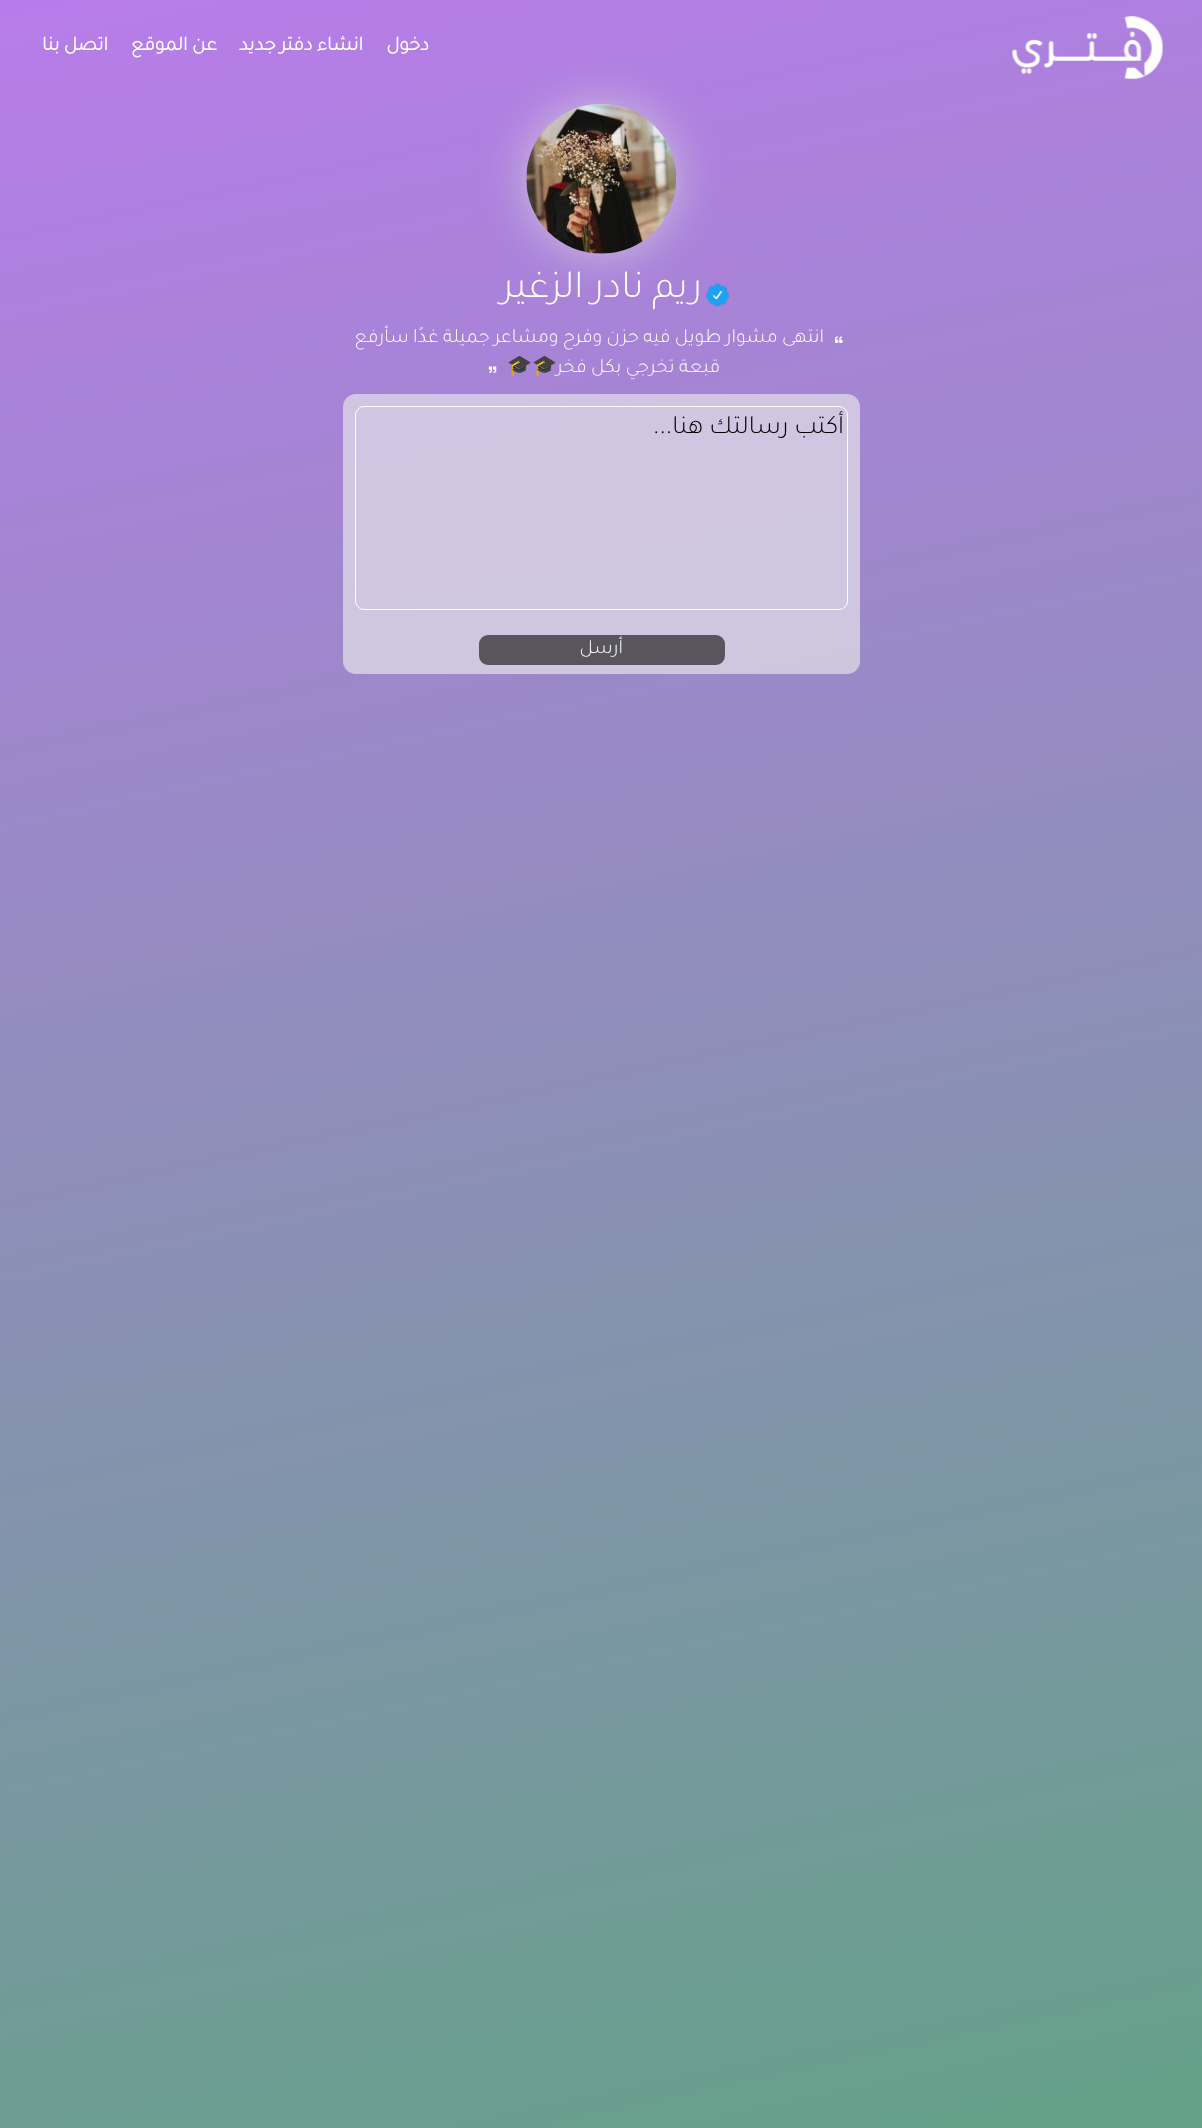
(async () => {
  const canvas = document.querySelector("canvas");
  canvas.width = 1202;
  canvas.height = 2128;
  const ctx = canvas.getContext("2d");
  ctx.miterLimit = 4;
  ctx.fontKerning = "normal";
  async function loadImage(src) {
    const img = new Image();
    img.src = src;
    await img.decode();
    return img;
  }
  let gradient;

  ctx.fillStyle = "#ffffff";
  ctx.fillRect(0, 0, 1202, 2128);
  gradient = ctx.createLinearGradient(844, 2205, 359, -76);
  gradient.addColorStop(0, "#64a188");
  gradient.addColorStop(1, "#b87cea");
  ctx.fillStyle = gradient;
  ctx.fillRect(0, 0, 1202, 2128);
  ctx.drawImage(await loadImage("img/1.png"), 1012, 16, 151, 63);
  ctx.fillStyle = "#e1e1e1";
  ctx.filter = "blur(27.5px)";
  ctx.beginPath();
  ctx.roundRect(536, 114, 130, 130, 65);
  ctx.fill();
  ctx.filter = "none";
  ctx.drawImage(await loadImage("img/2.png"), 526, 104, 150, 150);
  ctx.drawImage(await loadImage("img/3.png"), 706, 283, 23, 24);
  ctx.drawImage(await loadImage("img/4.png"), 835, 336, 8, 7);
  ctx.drawImage(await loadImage("img/5.png"), 488, 366, 9, 7);
  ctx.fillStyle = "rgba(234, 234, 234, 0.64)";
  ctx.beginPath();
  ctx.roundRect(343, 394, 517, 280, 13);
  ctx.fill();
  ctx.beginPath();
  ctx.roundRect(355.5, 406.5, 492, 203, 8.5);
  ctx.strokeStyle = "#ffffff";
  ctx.stroke();
  ctx.fillStyle = "#58555e";
  ctx.beginPath();
  ctx.roundRect(479, 635, 246, 30, 9);
  ctx.fill();
  ctx.direction = "rtl";
  ctx.font = "bold 20px Tajawal";
  ctx.fillStyle = "#ffffff";
  for (const [text, x, y] of [
    ["دخول", 429, 50],
    ["انشاء دفتر جديد", 363, 50],
    ["عن الموقع", 217, 50],
    ["اتصل بنا", 108, 50],
  ]) {
    ctx.fillText(text, x, y);
  }
  ctx.font = "300 40px Tajawal";
  ctx.fillText("ريم نادر الزغير", 702, 297);
  ctx.font = "300 20px Tajawal";
  ctx.fillText("انتهى مشوار طويل فيه حزن وفرح ومشاعر جميلة غدًا سأرفع", 824, 342);
  ctx.font = "20px Noto Color Emoji";
  ctx.fillText("🎓🎓", 557, 372);
  ctx.font = "300 20px Tajawal";
  ctx.fillText("قبعة تخرجي بكل فخر", 720, 372);
  ctx.font = "300 26.25px Tajawal";
  ctx.fillStyle = "#000000";
  ctx.fillText("أكتب رسالتك هنا...", 844, 433);
  ctx.font = "300 20px Tajawal";
  ctx.fillStyle = "#ffffff";
  ctx.fillText("أرسل", 623, 653);
})();
